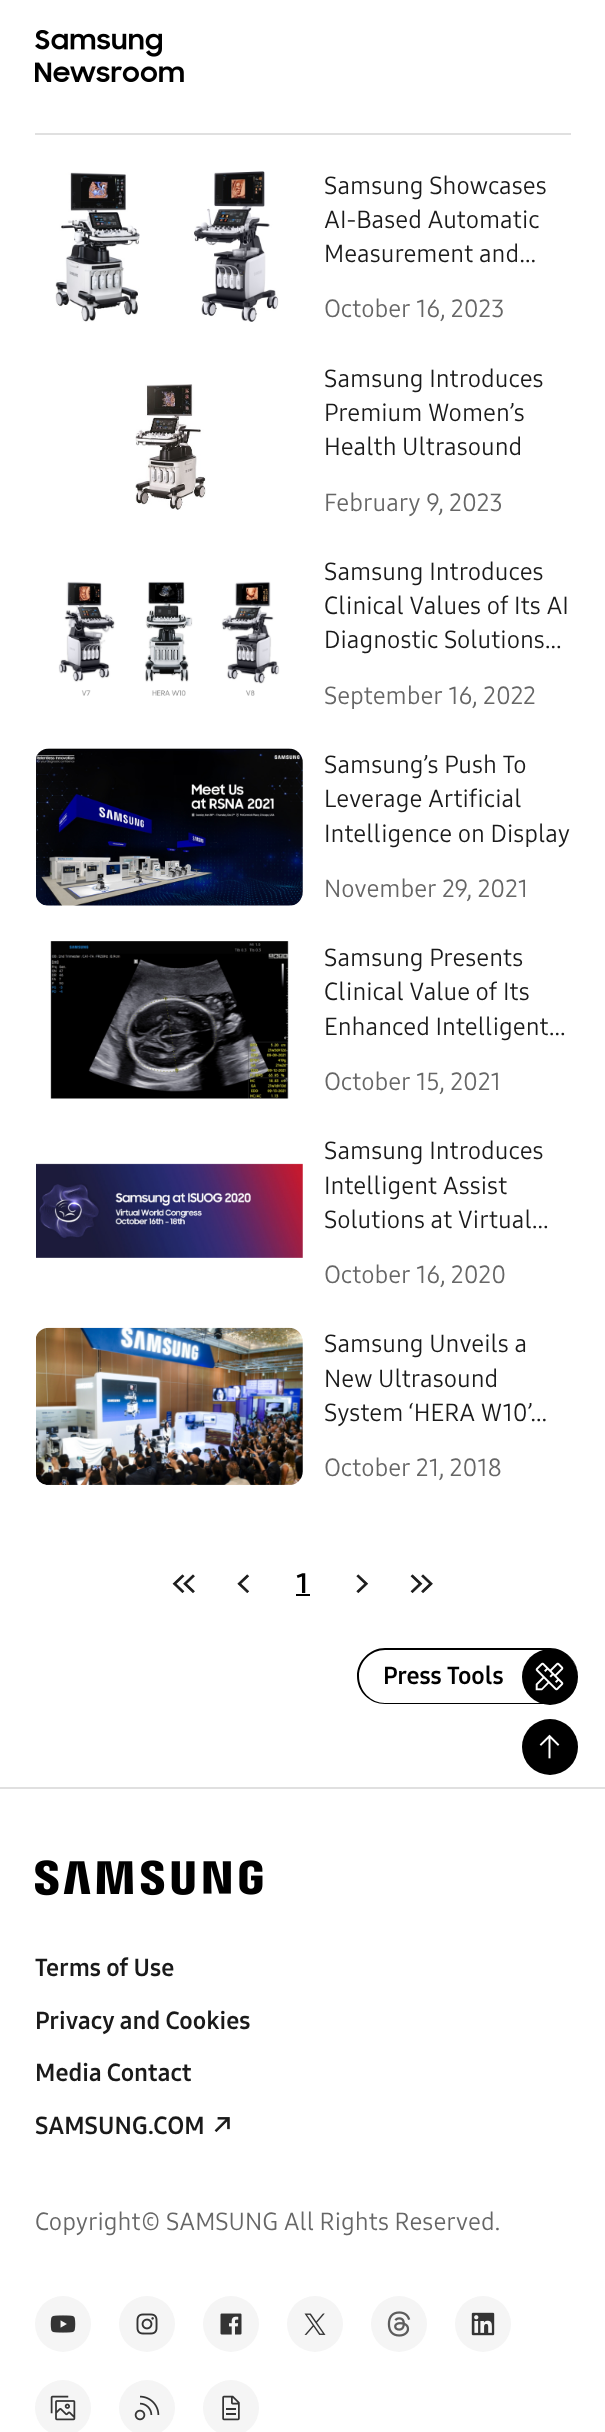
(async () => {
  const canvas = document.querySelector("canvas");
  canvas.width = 605;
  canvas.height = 2432;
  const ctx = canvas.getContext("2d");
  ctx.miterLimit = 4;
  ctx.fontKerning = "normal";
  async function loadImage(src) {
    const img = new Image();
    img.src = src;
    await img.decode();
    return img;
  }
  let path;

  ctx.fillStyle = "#ffffff";
  ctx.fillRect(0, 0, 605, 2432);
  ctx.drawImage(await loadImage("img/1.png"), 35, 30, 149, 52);
  ctx.fillStyle = "#e0e0e0";
  ctx.fillRect(35, 133, 536, 2);
  ctx.drawImage(await loadImage("img/2.png"), 55, 171, 224, 151);
  ctx.drawImage(await loadImage("img/3.png"), 135, 384, 71, 126);
  ctx.drawImage(await loadImage("img/4.png"), 58, 581, 222, 115);
  ctx.drawImage(await loadImage("img/5.png"), 36, 748, 267, 158);
  ctx.drawImage(await loadImage("img/6.png"), 50, 941, 239, 158);
  ctx.drawImage(await loadImage("img/7.png"), 36, 1163, 267, 95);
  ctx.drawImage(await loadImage("img/8.png"), 36, 1327, 267, 158);
  ctx.drawImage(await loadImage("img/9.png"), 172, 1574, 23, 19);
  ctx.drawImage(await loadImage("img/10.png"), 237, 1574, 13, 19);
  ctx.fillStyle = "#000000";
  ctx.fillRect(296, 1594, 14, 2);
  ctx.drawImage(await loadImage("img/11.png"), 356, 1574, 13, 19);
  ctx.drawImage(await loadImage("img/12.png"), 410, 1574, 23, 19);
  path = new Path2D("M385 1648H550C565 1648 578 1661 578 1676C578 1692 565 1704 550 1704H385C370 1704 357 1692 357 1676C357 1661 370 1648 385 1648ZM385 1650H550C565 1650 578 1662 578 1676C578 1691 565 1703 550 1703H385C371 1703 359 1691 359 1676C359 1662 371 1650 385 1650Z");
  ctx.fill(path, "evenodd");
  ctx.beginPath();
  ctx.arc(550, 1677, 28, 0, Math.PI * 2);
  ctx.fill();
  ctx.drawImage(await loadImage("img/13.png"), 535, 1662, 29, 29);
  ctx.beginPath();
  ctx.arc(550, 1747, 28, 0, Math.PI * 2);
  ctx.fill();
  ctx.drawImage(await loadImage("img/14.png"), 539, 1734, 21, 25);
  ctx.fillStyle = "#e0e0e0";
  ctx.fillRect(0, 1787, 605, 2);
  ctx.drawImage(await loadImage("img/15.png"), 35, 1860, 228, 36);
  ctx.drawImage(await loadImage("img/16.png"), 214, 2117, 16, 15);
  ctx.fillStyle = "#f5f5f5";
  ctx.beginPath();
  ctx.arc(63, 2324, 28, 0, Math.PI * 2);
  ctx.fill();
  ctx.drawImage(await loadImage("img/17.png"), 50, 2315, 26, 18);
  ctx.beginPath();
  ctx.arc(147, 2324, 28, 0, Math.PI * 2);
  ctx.fill();
  ctx.drawImage(await loadImage("img/18.png"), 136, 2313, 22, 22);
  ctx.beginPath();
  ctx.arc(231, 2324, 28, 0, Math.PI * 2);
  ctx.fill();
  ctx.drawImage(await loadImage("img/19.png"), 220, 2313, 22, 22);
  ctx.beginPath();
  ctx.arc(315, 2324, 28, 0, Math.PI * 2);
  ctx.fill();
  ctx.drawImage(await loadImage("img/20.png"), 304, 2313, 22, 22);
  ctx.beginPath();
  ctx.arc(399, 2324, 28, 0, Math.PI * 2);
  ctx.fill();
  ctx.drawImage(await loadImage("img/21.png"), 387, 2311, 24, 26);
  ctx.beginPath();
  ctx.arc(483, 2324, 28, 0, Math.PI * 2);
  ctx.fill();
  ctx.drawImage(await loadImage("img/22.png"), 471, 2312, 24, 24);
  ctx.beginPath();
  ctx.arc(63, 2408, 28, 0, Math.PI * 2);
  ctx.fill();
  ctx.drawImage(await loadImage("img/23.png"), 50, 2395, 26, 26);
  ctx.beginPath();
  ctx.arc(147, 2408, 28, 0, Math.PI * 2);
  ctx.fill();
  ctx.drawImage(await loadImage("img/24.png"), 134, 2395, 26, 26);
  ctx.beginPath();
  ctx.arc(231, 2408, 28, 0, Math.PI * 2);
  ctx.fill();
  ctx.drawImage(await loadImage("img/25.png"), 222, 2395, 18, 26);
  ctx.font = "24.5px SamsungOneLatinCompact";
  ctx.fillStyle = "#1a1a1a";
  for (const [text, x, y] of [
    ["Samsung Showcases", 324, 194],
    ["AI-Based Automatic", 324, 228],
    ["Measurement and…", 324, 262],
  ]) {
    ctx.fillText(text, x, y);
  }
  ctx.fillStyle = "#666666";
  ctx.fillText("October 16, 2023", 324, 317);
  ctx.fillStyle = "#1a1a1a";
  for (const [text, x, y] of [
    ["Samsung Introduces", 324, 387],
    ["Premium Women’s", 324, 421],
    ["Health Ultrasound", 324, 455],
  ]) {
    ctx.fillText(text, x, y);
  }
  ctx.fillStyle = "#666666";
  ctx.fillText("February 9, 2023", 324, 511);
  ctx.fillStyle = "#1a1a1a";
  for (const [text, x, y] of [
    ["Samsung Introduces", 324, 580],
    ["Clinical Values of Its AI", 324, 614],
    ["Diagnostic Solutions…", 324, 648],
  ]) {
    ctx.fillText(text, x, y);
  }
  ctx.fillStyle = "#666666";
  ctx.fillText("September 16, 2022", 324, 704);
  ctx.fillStyle = "#1a1a1a";
  for (const [text, x, y] of [
    ["Samsung’s Push To", 324, 773],
    ["Leverage Artificial", 324, 807],
    ["Intelligence on Display", 324, 842],
  ]) {
    ctx.fillText(text, x, y);
  }
  ctx.fillStyle = "#666666";
  ctx.fillText("November 29, 2021", 324, 897);
  ctx.fillStyle = "#1a1a1a";
  for (const [text, x, y] of [
    ["Samsung Presents", 324, 966],
    ["Clinical Value of Its", 324, 1000],
    ["Enhanced Intelligent…", 324, 1035],
  ]) {
    ctx.fillText(text, x, y);
  }
  ctx.fillStyle = "#666666";
  ctx.fillText("October 15, 2021", 324, 1090);
  ctx.fillStyle = "#1a1a1a";
  for (const [text, x, y] of [
    ["Samsung Introduces", 324, 1159],
    ["Intelligent Assist", 324, 1194],
    ["Solutions at Virtual…", 324, 1228],
  ]) {
    ctx.fillText(text, x, y);
  }
  ctx.fillStyle = "#666666";
  ctx.fillText("October 16, 2020", 324, 1283);
  ctx.fillStyle = "#1a1a1a";
  for (const [text, x, y] of [
    ["Samsung Unveils a", 324, 1352],
    ["New Ultrasound", 324, 1387],
    ["System ‘HERA W10’…", 324, 1421],
  ]) {
    ctx.fillText(text, x, y);
  }
  ctx.fillStyle = "#666666";
  ctx.fillText("October 21, 2018", 324, 1476);
  ctx.font = "bold 28px SamsungOneLatinCompact";
  ctx.fillStyle = "#000000";
  ctx.fillText("1", 296, 1593);
  ctx.font = "bold 24.5px SamsungOneLatinCompact";
  ctx.fillText("Press Tools", 383, 1684);
  ctx.fillStyle = "#1a1a1a";
  for (const [text, x, y] of [
    ["Terms of Use", 35, 1976],
    ["Privacy and Cookies", 35, 2029],
    ["Media Contact", 35, 2081],
    ["SAMSUNG.COM", 35, 2134],
  ]) {
    ctx.fillText(text, x, y);
  }
  ctx.font = "24.5px SamsungOneLatinCompact";
  ctx.fillStyle = "#666666";
  ctx.fillText("Copyright© SAMSUNG All Rights Reserved.", 35, 2230);
})();
